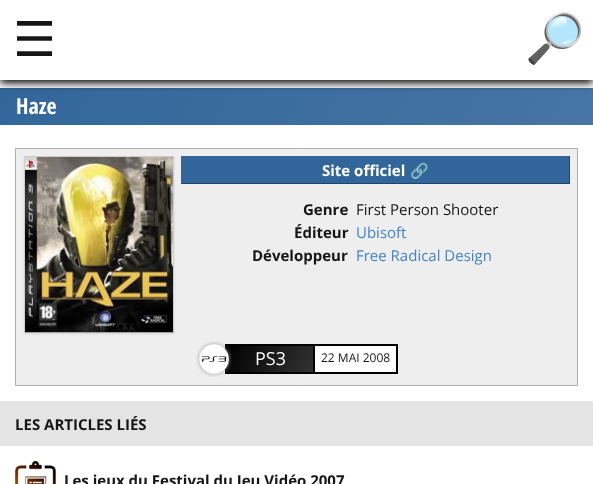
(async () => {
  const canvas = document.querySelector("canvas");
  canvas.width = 593;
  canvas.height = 484;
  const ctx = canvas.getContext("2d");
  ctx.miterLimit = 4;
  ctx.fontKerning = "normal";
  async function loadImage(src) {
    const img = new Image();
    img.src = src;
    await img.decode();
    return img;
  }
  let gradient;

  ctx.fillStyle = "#ffffff";
  ctx.fillRect(0, 0, 593, 484);
  gradient = ctx.createLinearGradient(66, -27, 527, 240);
  gradient.addColorStop(0, "#32669a");
  gradient.addColorStop(1, "#4775a4");
  ctx.fillStyle = gradient;
  ctx.fillRect(0, 88, 593, 37);
  ctx.save();
  ctx.beginPath();
  ctx.rect(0, 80, 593, 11);
  ctx.clip();
  ctx.fillStyle = "#000000";
  ctx.filter = "blur(4px)";
  ctx.beginPath();
  ctx.rect(0, 3, 593, 80);
  ctx.fill();
  ctx.filter = "none";
  ctx.restore();
  ctx.fillStyle = "#eeeeee";
  ctx.beginPath();
  ctx.rect(15.5, 148.5, 562, 237);
  ctx.fill();
  ctx.strokeStyle = "#aeaeae";
  ctx.stroke();
  ctx.fillStyle = "rgba(0, 0, 0, 0.1)";
  ctx.filter = "blur(1px)";
  ctx.beginPath();
  ctx.rect(24, 157, 150, 177);
  ctx.fill();
  ctx.filter = "none";
  for (const [x, y, w, h, color] of [
    [24, 156, 150, 1, "#cecece"],
    [173, 156, 1, 177, "#cecece"],
    [24, 332, 150, 1, "#a1a1a1"],
    [24, 156, 1, 177, "#cecece"],
  ]) {
    ctx.fillStyle = color;
    ctx.fillRect(x, y, w, h);
  }
  ctx.drawImage(await loadImage("img/1.png"), 25, 157, 148, 175);
  for (const [x, y, w, h, color] of [
    [182, 156, 387, 27, "#32669a"],
    [569, 156, 1, 28, "#214467"],
    [181, 183, 389, 1, "#214467"],
    [181, 156, 1, 28, "#32669a"],
    [225, 344, 90, 30, "#000000"],
  ]) {
    ctx.fillStyle = color;
    ctx.fillRect(x, y, w, h);
  }
  gradient = ctx.createLinearGradient(232, 337, 308, 381);
  gradient.addColorStop(0, "rgba(255, 255, 255, 0)");
  gradient.addColorStop(1, "rgba(255, 255, 255, 0.2)");
  ctx.fillStyle = gradient;
  ctx.fillRect(227, 346, 86, 26);
  ctx.drawImage(await loadImage("img/2.png"), 196, 341, 37, 36);
  for (const [x, y, w, h, color] of [
    [315, 346, 81, 26, "#ffffff"],
    [315, 344, 83, 2, "#000000"],
    [396, 344, 2, 30, "#000000"],
    [315, 372, 83, 2, "#000000"],
    [0, 401, 593, 45, "#e4e4e4"],
  ]) {
    ctx.fillStyle = color;
    ctx.fillRect(x, y, w, h);
  }
  ctx.drawImage(await loadImage("img/3.png"), 15, 461, 41, 23);
  ctx.font = "48px DejaVu Sans";
  ctx.fillStyle = "#161616";
  ctx.fillText("☰", 13, 56);
  ctx.font = "48px Noto Color Emoji";
  ctx.fillText("🔎", 525, 55);
  ctx.font = "bold 22px Open Sans Condensed";
  ctx.fillStyle = "#ffffff";
  ctx.fillText("Haze", 16, 114);
  ctx.font = "bold 15px Open Sans";
  ctx.fillText("Site officiel", 322, 176);
  ctx.font = "bold 15px Noto Color Emoji";
  ctx.fillText("🔗", 410, 176);
  ctx.font = "bold 15px Open Sans";
  ctx.fillStyle = "#161616";
  ctx.fillText("Genre", 303, 215);
  ctx.font = "15px Open Sans";
  ctx.fillText("First Person Shooter", 356, 215);
  ctx.font = "bold 15px Open Sans";
  ctx.fillText("Éditeur", 294, 238);
  ctx.font = "15px Open Sans";
  ctx.fillStyle = "#4284c5";
  ctx.fillText("Ubisoft", 356, 238);
  ctx.font = "bold 15px Open Sans";
  ctx.fillStyle = "#161616";
  ctx.fillText("Développeur", 252, 261);
  ctx.font = "15px Open Sans";
  ctx.fillStyle = "#4284c5";
  ctx.fillText("Free Radical Design", 356, 261);
  ctx.font = "18px Open Sans";
  ctx.fillStyle = "#ffffff";
  ctx.fillText("PS3", 255, 365);
  ctx.font = "12px Open Sans";
  ctx.fillStyle = "#161616";
  ctx.fillText("22 MAI 2008", 321, 362);
  ctx.font = "bold 15px Open Sans";
  ctx.fillText("LES ARTICLES LIÉS", 15, 430);
  ctx.fillText("Les jeux du Festival du Jeu Vidéo 2007", 64, 486);
})();
